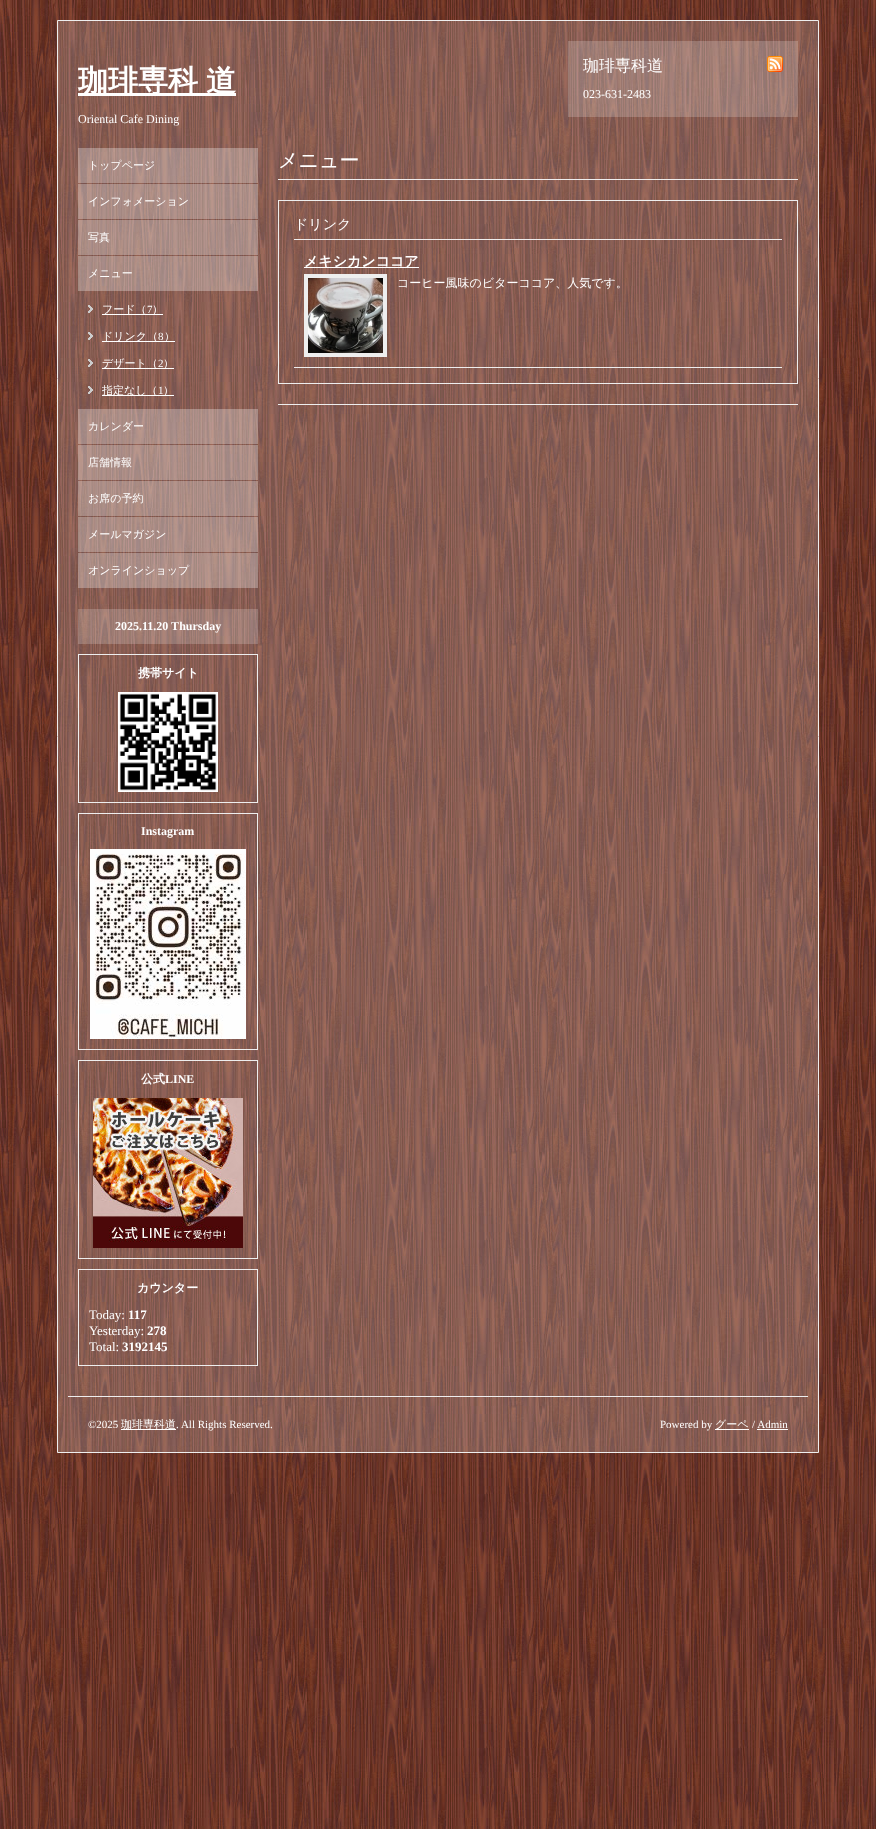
(async () => {
  const canvas = document.querySelector("canvas");
  canvas.width = 876;
  canvas.height = 1829;
  const ctx = canvas.getContext("2d");
  ctx.miterLimit = 4;
  ctx.fontKerning = "normal";
  async function loadImage(src) {
    const img = new Image();
    img.src = src;
    await img.decode();
    return img;
  }

  ctx.fillStyle = "#ffffff";
  ctx.fillRect(0, 0, 876, 1829);
  ctx.drawImage(await loadImage("img/1.png"), 0, 0, 876, 1829);
  ctx.fillStyle = "rgba(255, 255, 255, 0.2)";
  ctx.beginPath();
  ctx.rect(57.5, 20.5, 761, 1432);
  ctx.fill();
  ctx.strokeStyle = "#eeeeee";
  ctx.stroke();
  ctx.fillStyle = "#ffffff";
  ctx.fillRect(78, 93, 158, 3);
  ctx.fillStyle = "rgba(255, 255, 255, 0.2)";
  ctx.fillRect(568, 41, 230, 76);
  ctx.drawImage(await loadImage("img/2.png"), 767, 56, 16, 16);
  for (const [x, y, w, h, color] of [
    [78, 148, 180, 35, "rgba(255, 255, 255, 0.3)"],
    [78, 184, 180, 35, "rgba(255, 255, 255, 0.3)"],
    [78, 220, 180, 35, "rgba(255, 255, 255, 0.3)"],
    [78, 256, 180, 35, "rgba(255, 255, 255, 0.3)"],
  ]) {
    ctx.fillStyle = color;
    ctx.fillRect(x, y, w, h);
  }
  ctx.drawImage(await loadImage("img/3.png"), 88, 305, 5, 8);
  ctx.fillStyle = "#ffffff";
  ctx.fillRect(102, 314, 61, 1);
  ctx.drawImage(await loadImage("img/4.png"), 88, 332, 5, 8);
  ctx.fillRect(102, 341, 73, 1);
  ctx.drawImage(await loadImage("img/5.png"), 88, 359, 5, 8);
  ctx.fillRect(102, 368, 72, 1);
  ctx.drawImage(await loadImage("img/6.png"), 88, 386, 5, 8);
  for (const [x, y, w, h, color] of [
    [102, 395, 72, 1, "#ffffff"],
    [78, 409, 180, 35, "rgba(255, 255, 255, 0.3)"],
    [78, 445, 180, 35, "rgba(255, 255, 255, 0.3)"],
    [78, 481, 180, 35, "rgba(255, 255, 255, 0.3)"],
    [78, 517, 180, 35, "rgba(255, 255, 255, 0.3)"],
    [78, 553, 180, 35, "rgba(255, 255, 255, 0.3)"],
    [278, 179, 520, 1, "#eeeeee"],
    [278, 404, 520, 1, "#eeeeee"],
  ]) {
    ctx.fillStyle = color;
    ctx.fillRect(x, y, w, h);
  }
  ctx.strokeRect(278.5, 200.5, 519, 183);
  for (const [x, y, w, h, color] of [
    [294, 239, 488, 1, "#eeeeee"],
    [294, 367, 488, 1, "#eeeeee"],
    [304, 267, 115, 1, "#ffffff"],
    [304, 274, 83, 83, "#eeeeee"],
  ]) {
    ctx.fillStyle = color;
    ctx.fillRect(x, y, w, h);
  }
  ctx.drawImage(await loadImage("img/7.png"), 308, 278, 75, 75);
  ctx.fillStyle = "rgba(255, 255, 255, 0.2)";
  ctx.fillRect(78, 609, 180, 35);
  ctx.strokeRect(78.5, 654.5, 179, 148);
  ctx.drawImage(await loadImage("img/8.png"), 118, 692, 100, 100);
  ctx.strokeRect(78.5, 813.5, 179, 236);
  ctx.drawImage(await loadImage("img/9.png"), 90, 849, 156, 190);
  ctx.strokeRect(78.5, 1060.5, 179, 198);
  ctx.drawImage(await loadImage("img/10.png"), 93, 1098, 150, 150);
  ctx.strokeRect(78.5, 1269.5, 179, 96);
  for (const [x, y, w, h, color] of [
    [68, 1396, 740, 1, "#eeeeee"],
    [121, 1429, 55, 1, "#ffffff"],
    [715, 1429, 34, 1, "#ffffff"],
    [757, 1429, 31, 1, "#ffffff"],
  ]) {
    ctx.fillStyle = color;
    ctx.fillRect(x, y, w, h);
  }
  ctx.wordSpacing = "-1px";
  ctx.font = "bold 30px WenQuanYi Zen Hei";
  ctx.fillText("珈琲専科 道", 78, 91);
  ctx.wordSpacing = "0px";
  ctx.font = "12px Liberation Serif";
  ctx.fillText("Oriental Cafe Dining", 78, 123);
  ctx.font = "500 16px WenQuanYi Zen Hei";
  ctx.fillText("珈琲専科道", 583, 71);
  ctx.font = "12px Liberation Serif";
  ctx.fillText("023-631-2483", 583, 98);
  ctx.font = "500 11px WenQuanYi Zen Hei";
  for (const [text, x, y] of [
    ["トップページ", 88, 169],
    ["インフォメーション", 88, 205],
    ["写真", 88, 241],
    ["メニュー", 88, 277],
    ["フード（", 102, 313],
  ]) {
    ctx.fillText(text, x, y);
  }
  ctx.font = "11px Liberation Serif";
  ctx.fillText("7", 147, 313);
  ctx.font = "500 11px WenQuanYi Zen Hei";
  ctx.fillText("）", 152, 313);
  ctx.fillText("ドリンク（", 102, 340);
  ctx.font = "11px Liberation Serif";
  ctx.fillText("8", 158, 340);
  ctx.font = "500 11px WenQuanYi Zen Hei";
  ctx.fillText("）", 164, 340);
  ctx.fillText("デザート（", 102, 367);
  ctx.font = "11px Liberation Serif";
  ctx.fillText("2", 158, 367);
  ctx.font = "500 11px WenQuanYi Zen Hei";
  ctx.fillText("）", 163, 367);
  ctx.fillText("指定なし（", 102, 394);
  ctx.font = "11px Liberation Serif";
  ctx.fillText("1", 158, 394);
  ctx.font = "500 11px WenQuanYi Zen Hei";
  for (const [text, x, y] of [
    ["）", 163, 394],
    ["カレンダー", 88, 430],
    ["店舗情報", 88, 466],
    ["お席の予約", 88, 502],
    ["メールマガジン", 88, 538],
    ["オンラインショップ", 88, 574],
  ]) {
    ctx.fillText(text, x, y);
  }
  ctx.font = "500 20px WenQuanYi Zen Hei";
  ctx.fillText("メニュー", 278, 167);
  ctx.font = "500 14px WenQuanYi Zen Hei";
  ctx.fillText("ドリンク", 294, 229);
  ctx.font = "bold 14px WenQuanYi Zen Hei";
  ctx.fillText("メキシカンココア", 304, 266);
  ctx.font = "500 12px WenQuanYi Zen Hei";
  ctx.fillText("コーヒー風味のビターココア、人気です。", 397, 287);
  ctx.font = "bold 12px Liberation Serif";
  ctx.fillText("2025.11.20 Thursday", 115, 630);
  ctx.font = "bold 12px WenQuanYi Zen Hei";
  ctx.fillText("携帯サイト", 138, 677);
  ctx.font = "bold 12px Liberation Serif";
  ctx.fillText("Instagram", 141, 835);
  ctx.font = "bold 12px WenQuanYi Zen Hei";
  ctx.fillText("公式", 141, 1083);
  ctx.font = "bold 12px Liberation Serif";
  ctx.fillText("LINE", 165, 1083);
  ctx.font = "bold 12px WenQuanYi Zen Hei";
  ctx.fillText("カウンター", 137, 1292);
  ctx.font = "13px Liberation Serif";
  ctx.fillText("Today:", 89, 1319);
  ctx.font = "bold 13px Liberation Serif";
  ctx.fillText("117", 128, 1319);
  ctx.font = "13px Liberation Serif";
  ctx.fillText("Yesterday:", 89, 1335);
  ctx.font = "bold 13px Liberation Serif";
  ctx.fillText("278", 147, 1335);
  ctx.font = "13px Liberation Serif";
  ctx.fillText("Total:", 89, 1351);
  ctx.font = "bold 13px Liberation Serif";
  ctx.fillText("3192145", 122, 1351);
  ctx.font = "11px Liberation Serif";
  ctx.fillText("©2025", 88, 1428);
  ctx.font = "500 11px WenQuanYi Zen Hei";
  ctx.fillText("珈琲専科道", 121, 1428);
  ctx.font = "11px Liberation Serif";
  ctx.fillText(". All Rights Reserved.", 176, 1428);
  ctx.fillText("Powered by", 660, 1428);
  ctx.font = "500 11px WenQuanYi Zen Hei";
  ctx.fillText("グーペ", 715, 1428);
  ctx.font = "11px Liberation Serif";
  ctx.fillText("/ Admin", 752, 1428);
})();
